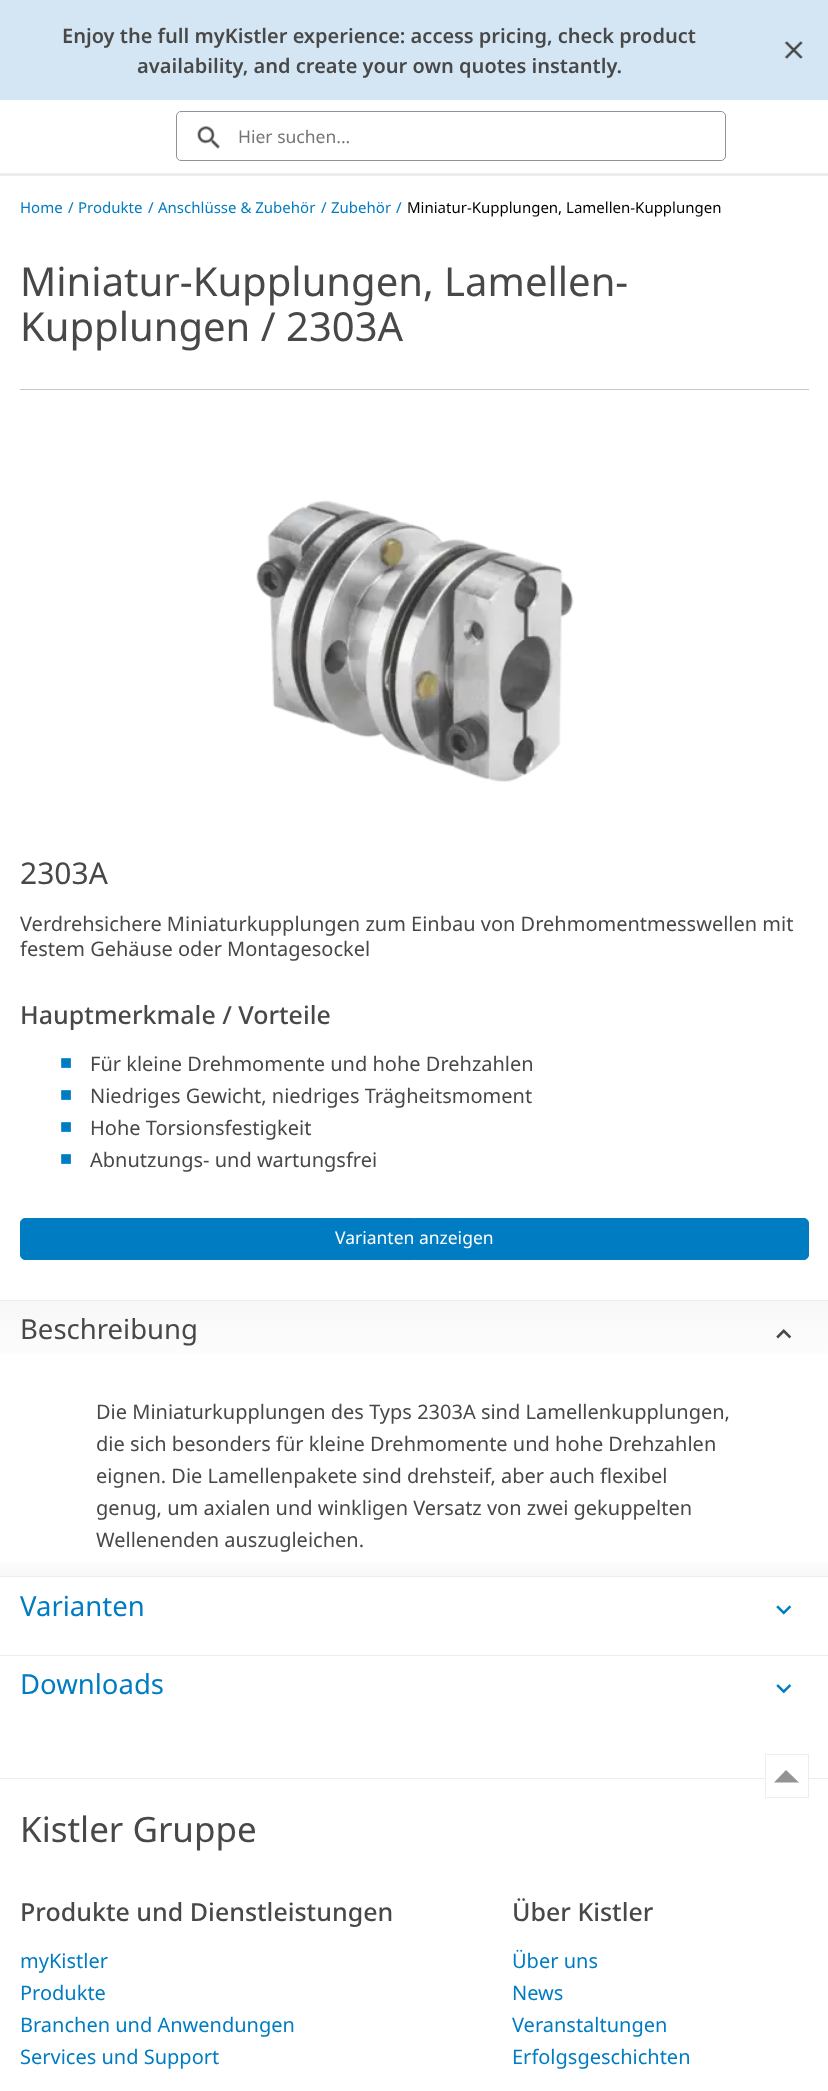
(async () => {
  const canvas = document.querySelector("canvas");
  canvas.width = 828;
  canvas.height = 2091;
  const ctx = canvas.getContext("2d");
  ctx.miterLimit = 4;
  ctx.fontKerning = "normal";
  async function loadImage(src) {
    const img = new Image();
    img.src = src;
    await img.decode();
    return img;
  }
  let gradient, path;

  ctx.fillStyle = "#ffffff";
  ctx.fillRect(0, 0, 828, 2091);
  ctx.fillStyle = "#eceded";
  ctx.fillRect(0, 173, 828, 3);
  ctx.fillStyle = "#d4e6f4";
  ctx.fillRect(0, 0, 828, 100);
  ctx.drawImage(await loadImage("img/1.png"), 784, 41, 19, 18);
  ctx.beginPath();
  ctx.roundRect(176.5, 111.5, 549, 49, 4.5);
  ctx.strokeStyle = "#929395";
  ctx.stroke();
  ctx.drawImage(await loadImage("img/2.png"), 197, 126, 23, 23);
  ctx.fillStyle = "#c5c6c8";
  ctx.fillRect(20, 389, 789, 1);
  ctx.drawImage(await loadImage("img/3.png"), 256, 500, 318, 282);
  ctx.fillStyle = "#007cc2";
  ctx.beginPath();
  ctx.roundRect(20.5, 1218.5, 788, 41, 4.5);
  ctx.fill();
  ctx.strokeStyle = "#007cc2";
  ctx.stroke();
  gradient = ctx.createLinearGradient(414, 1379, 414, 1301);
  gradient.addColorStop(0, "#ffffff");
  gradient.addColorStop(1, "#f7f7f7");
  ctx.fillStyle = gradient;
  ctx.fillRect(0, 1301, 828, 54);
  ctx.fillStyle = "#eceded";
  ctx.fillRect(0, 1300, 828, 1);
  ctx.drawImage(await loadImage("img/4.png"), 776, 1329, 16, 10);
  gradient = ctx.createLinearGradient(414, 1576, 414, 1379);
  gradient.addColorStop(0, "#f7f7f7");
  gradient.addColorStop(0.1, "#ffffff");
  gradient.addColorStop(1, "#ffffff");
  ctx.fillStyle = gradient;
  ctx.fillRect(0, 1562, 828, 14);
  ctx.fillStyle = "#eceded";
  ctx.fillRect(0, 1576, 828, 1);
  ctx.drawImage(await loadImage("img/5.png"), 776, 1605, 16, 10);
  ctx.fillRect(0, 1655, 828, 1);
  ctx.drawImage(await loadImage("img/6.png"), 776, 1684, 16, 10);
  ctx.fillRect(0, 1778, 828, 1);
  ctx.fillStyle = "#ffffff";
  ctx.fillRect(766, 1778, 42, 1);
  ctx.strokeStyle = "#eceded";
  ctx.strokeRect(765.5, 1754.5, 43, 43);
  ctx.fillStyle = "#929395";
  path = new Path2D("M799 1782.5H774L786 1770Z");
  ctx.fill(path);
  ctx.font = "600 20px Noto Sans";
  ctx.fillStyle = "#484848";
  ctx.fillText("Enjoy the full myKistler experience: access pricing, check product", 62, 43);
  ctx.fillText("availability, and create your own quotes instantly.", 137, 73);
  ctx.font = "17.5px Noto Sans";
  ctx.fillStyle = "#757575";
  ctx.fillText("Hier suchen...", 238, 143);
  ctx.font = "15px Noto Sans";
  ctx.fillStyle = "#007cc2";
  for (const [text, x, y] of [
    ["Home", 20, 213],
    ["/", 68, 213],
    ["Produkte", 78, 213],
    ["/", 148, 213],
    ["Anschlüsse & Zubehör", 158, 213],
    ["/", 321, 213],
    ["Zubehör", 331, 213],
    ["/", 396, 213],
  ]) {
    ctx.fillText(text, x, y);
  }
  ctx.fillStyle = "#000000";
  ctx.fillText("Miniatur-Kupplungen, Lamellen-Kupplungen", 407, 213);
  ctx.font = "40px Noto Sans";
  ctx.fillStyle = "#484848";
  ctx.fillText("Miniatur-Kupplungen, Lamellen-", 20, 296);
  ctx.fillText("Kupplungen / 2303A", 20, 341);
  ctx.font = "30px Noto Sans";
  ctx.fillText("2303A", 20, 884);
  ctx.font = "20px Noto Sans";
  ctx.fillText("Verdrehsichere Miniaturkupplungen zum Einbau von Drehmomentmesswellen mit", 20, 931);
  ctx.fillText("festem Gehäuse oder Montagesockel", 20, 956);
  ctx.font = "500 25px Noto Sans";
  ctx.fillText("Hauptmerkmale / Vorteile", 20, 1024);
  ctx.font = "20px Liberation Sans";
  ctx.fillStyle = "#007cc2";
  ctx.fillText("■", 60, 1069);
  ctx.font = "20px Noto Sans";
  ctx.fillStyle = "#484848";
  ctx.fillText("Für kleine Drehmomente und hohe Drehzahlen", 90, 1071);
  ctx.font = "20px Liberation Sans";
  ctx.fillStyle = "#007cc2";
  ctx.fillText("■", 60, 1101);
  ctx.font = "20px Noto Sans";
  ctx.fillStyle = "#484848";
  ctx.fillText("Niedriges Gewicht, niedriges Trägheitsmoment", 90, 1103);
  ctx.font = "20px Liberation Sans";
  ctx.fillStyle = "#007cc2";
  ctx.fillText("■", 60, 1133);
  ctx.font = "20px Noto Sans";
  ctx.fillStyle = "#484848";
  ctx.fillText("Hohe Torsionsfestigkeit", 90, 1135);
  ctx.font = "20px Liberation Sans";
  ctx.fillStyle = "#007cc2";
  ctx.fillText("■", 60, 1165);
  ctx.font = "20px Noto Sans";
  ctx.fillStyle = "#484848";
  ctx.fillText("Abnutzungs- und wartungsfrei", 90, 1167);
  ctx.font = "17.5px Noto Sans";
  ctx.fillStyle = "#ffffff";
  ctx.fillText("Varianten anzeigen", 335, 1244);
  ctx.font = "27.5px Noto Sans";
  ctx.fillStyle = "#484848";
  ctx.fillText("Beschreibung", 20, 1339);
  ctx.font = "20px Noto Sans";
  for (const [text, x, y] of [
    ["Die Miniaturkupplungen des Typs 2303A sind Lamellenkupplungen,", 96, 1419],
    ["die sich besonders für kleine Drehmomente und hohe Drehzahlen", 96, 1451],
    ["eignen. Die Lamellenpakete sind drehsteif, aber auch flexibel", 96, 1483],
    ["genug, um axialen und winkligen Versatz von zwei gekuppelten", 96, 1515],
    ["Wellenenden auszugleichen.", 96, 1547],
  ]) {
    ctx.fillText(text, x, y);
  }
  ctx.font = "27.5px Noto Sans";
  ctx.fillStyle = "#007cc2";
  ctx.fillText("Varianten", 20, 1616);
  ctx.fillText("Downloads", 20, 1694);
  ctx.font = "35px Noto Sans";
  ctx.fillStyle = "#484848";
  ctx.fillText("Kistler Gruppe", 20, 1842);
  ctx.font = "500 25px Noto Sans";
  ctx.fillText("Produkte und Dienstleistungen", 20, 1921);
  ctx.font = "20px Noto Sans";
  ctx.fillStyle = "#007cc2";
  for (const [text, x, y] of [
    ["myKistler", 20, 1968],
    ["Produkte", 20, 2000],
    ["Branchen und Anwendungen", 20, 2032],
    ["Services und Support", 20, 2064],
  ]) {
    ctx.fillText(text, x, y);
  }
  ctx.font = "500 25px Noto Sans";
  ctx.fillStyle = "#484848";
  ctx.fillText("Über Kistler", 512, 1921);
  ctx.font = "20px Noto Sans";
  ctx.fillStyle = "#007cc2";
  for (const [text, x, y] of [
    ["Über uns", 512, 1968],
    ["News", 512, 2000],
    ["Veranstaltungen", 512, 2032],
    ["Erfolgsgeschichten", 512, 2064],
  ]) {
    ctx.fillText(text, x, y);
  }
})();
